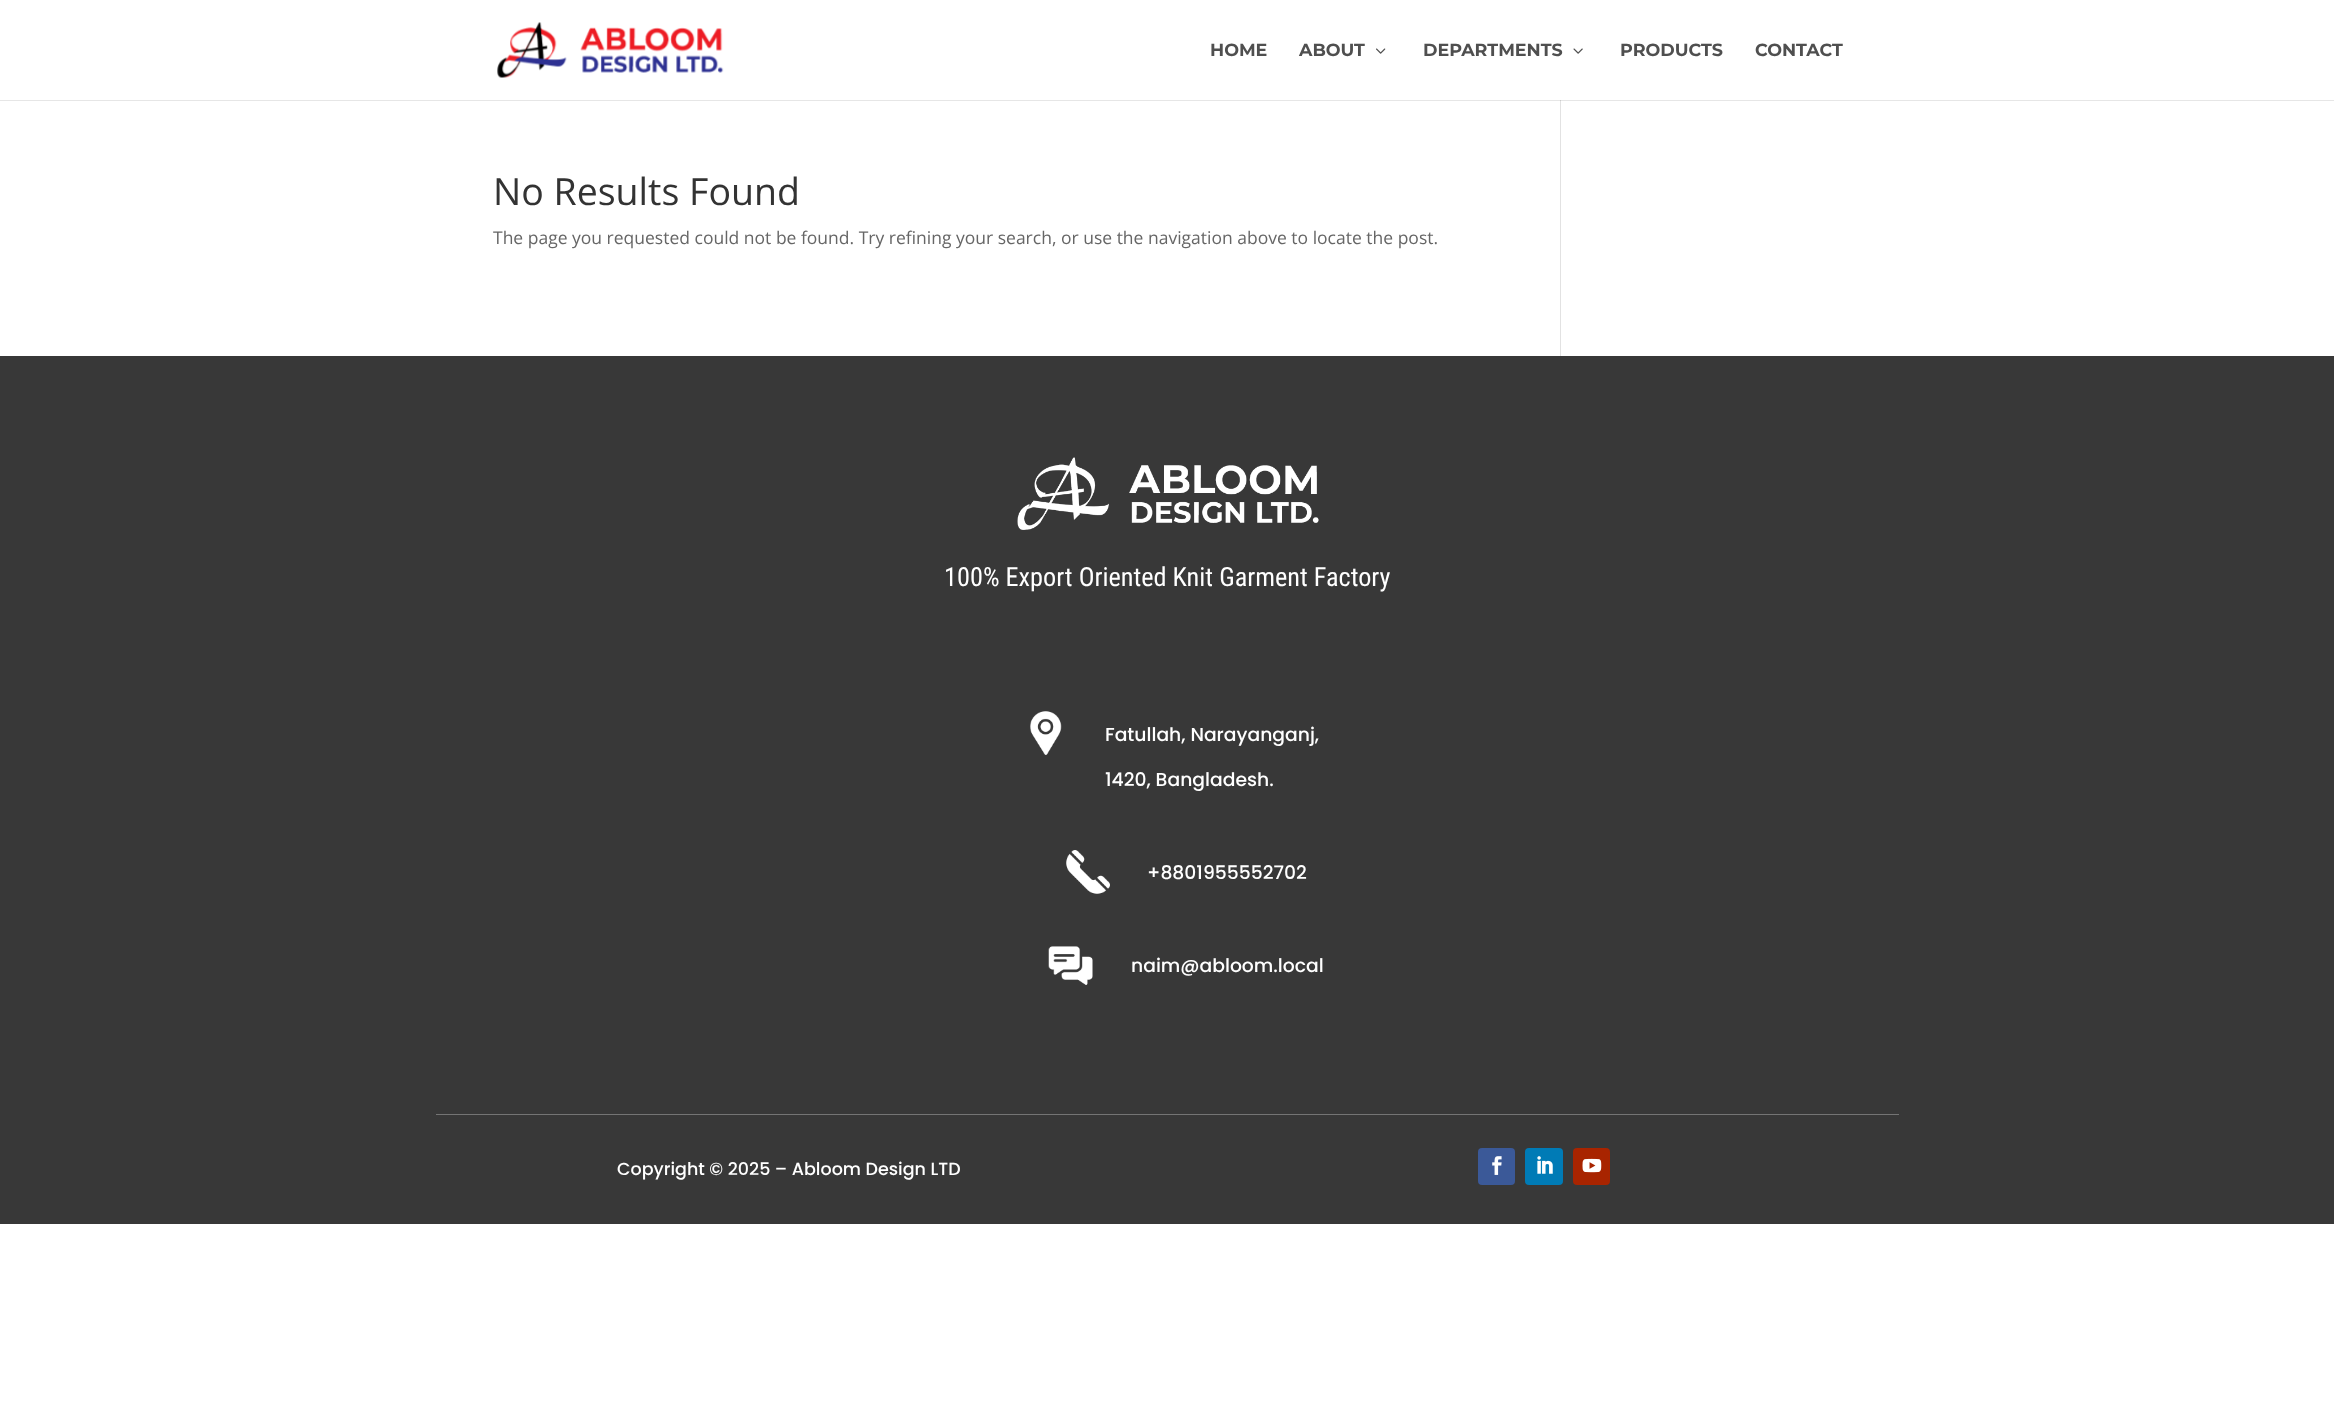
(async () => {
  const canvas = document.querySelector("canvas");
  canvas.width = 2334;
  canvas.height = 1428;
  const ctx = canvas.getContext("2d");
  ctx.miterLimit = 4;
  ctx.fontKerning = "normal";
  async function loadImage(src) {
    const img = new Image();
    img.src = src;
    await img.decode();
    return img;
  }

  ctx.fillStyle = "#ffffff";
  ctx.fillRect(0, 0, 2334, 1428);
  ctx.fillStyle = "#e6e6e6";
  ctx.fillRect(0, 100, 2334, 1);
  ctx.drawImage(await loadImage("img/1.png"), 497, 22, 227, 56);
  ctx.drawImage(await loadImage("img/2.png"), 1376, 48, 10, 6);
  ctx.drawImage(await loadImage("img/3.png"), 1573, 48, 10, 6);
  for (const [x, y, w, h, color] of [
    [1560, 100, 1, 256, "#e2e2e2"],
    [1560, 100, 1, 1, "#cbcbcb"],
    [0, 356, 2334, 868, "#383838"],
  ]) {
    ctx.fillStyle = color;
    ctx.fillRect(x, y, w, h);
  }
  ctx.drawImage(await loadImage("img/4.png"), 1017, 457, 302, 73);
  ctx.drawImage(await loadImage("img/5.png"), 1030, 711, 32, 44);
  ctx.drawImage(await loadImage("img/6.png"), 1066, 850, 44, 44);
  ctx.drawImage(await loadImage("img/7.png"), 1048, 946, 45, 39);
  ctx.fillStyle = "#747474";
  ctx.fillRect(436, 1114, 1463, 1);
  ctx.fillStyle = "#3b5998";
  ctx.beginPath();
  ctx.roundRect(1478, 1148, 37, 37, 4);
  ctx.fill();
  ctx.drawImage(await loadImage("img/8.png"), 1492, 1156, 10, 19);
  ctx.fillStyle = "#007bb6";
  ctx.beginPath();
  ctx.roundRect(1525, 1148, 38, 37, 4);
  ctx.fill();
  ctx.drawImage(await loadImage("img/9.png"), 1537, 1156, 16, 18);
  ctx.fillStyle = "#a82400";
  ctx.beginPath();
  ctx.roundRect(1573, 1148, 37, 37, 4);
  ctx.fill();
  ctx.drawImage(await loadImage("img/10.png"), 1582, 1158, 20, 15);
  ctx.font = "bold 17.5px Montserrat";
  ctx.fillStyle = "#4f4f4f";
  for (const [text, x, y] of [
    ["HOME", 1210, 56],
    ["ABOUT", 1299, 56],
    ["DEPARTMENTS", 1423, 56],
    ["PRODUCTS", 1620, 56],
    ["CONTACT", 1755, 56],
  ]) {
    ctx.fillText(text, x, y);
  }
  ctx.font = "37.5px Open Sans";
  ctx.fillStyle = "#333333";
  ctx.fillText("No Results Found", 493, 205);
  ctx.font = "17.5px Open Sans";
  ctx.fillStyle = "#666666";
  ctx.fillText("The page you requested could not be found. Try refining your search, or use the navigation above to locate the post.", 493, 244);
  ctx.font = "26.25px Roboto Condensed";
  ctx.fillStyle = "#ffffff";
  ctx.fillText("100% Export Oriented Knit Garment Factory", 944, 586);
  ctx.font = "500 18.75px Poppins";
  for (const [text, x, y] of [
    ["Fatullah, Narayanganj,", 1105, 741],
    ["1420, Bangladesh.", 1105, 786],
    ["+8801955552702", 1147, 879],
    ["naim@abloom.local", 1131, 972],
  ]) {
    ctx.fillText(text, x, y);
  }
  ctx.font = "500 17.5px Poppins";
  ctx.fillText("Copyright © 2025 – Abloom Design LTD", 617, 1175);
})();
